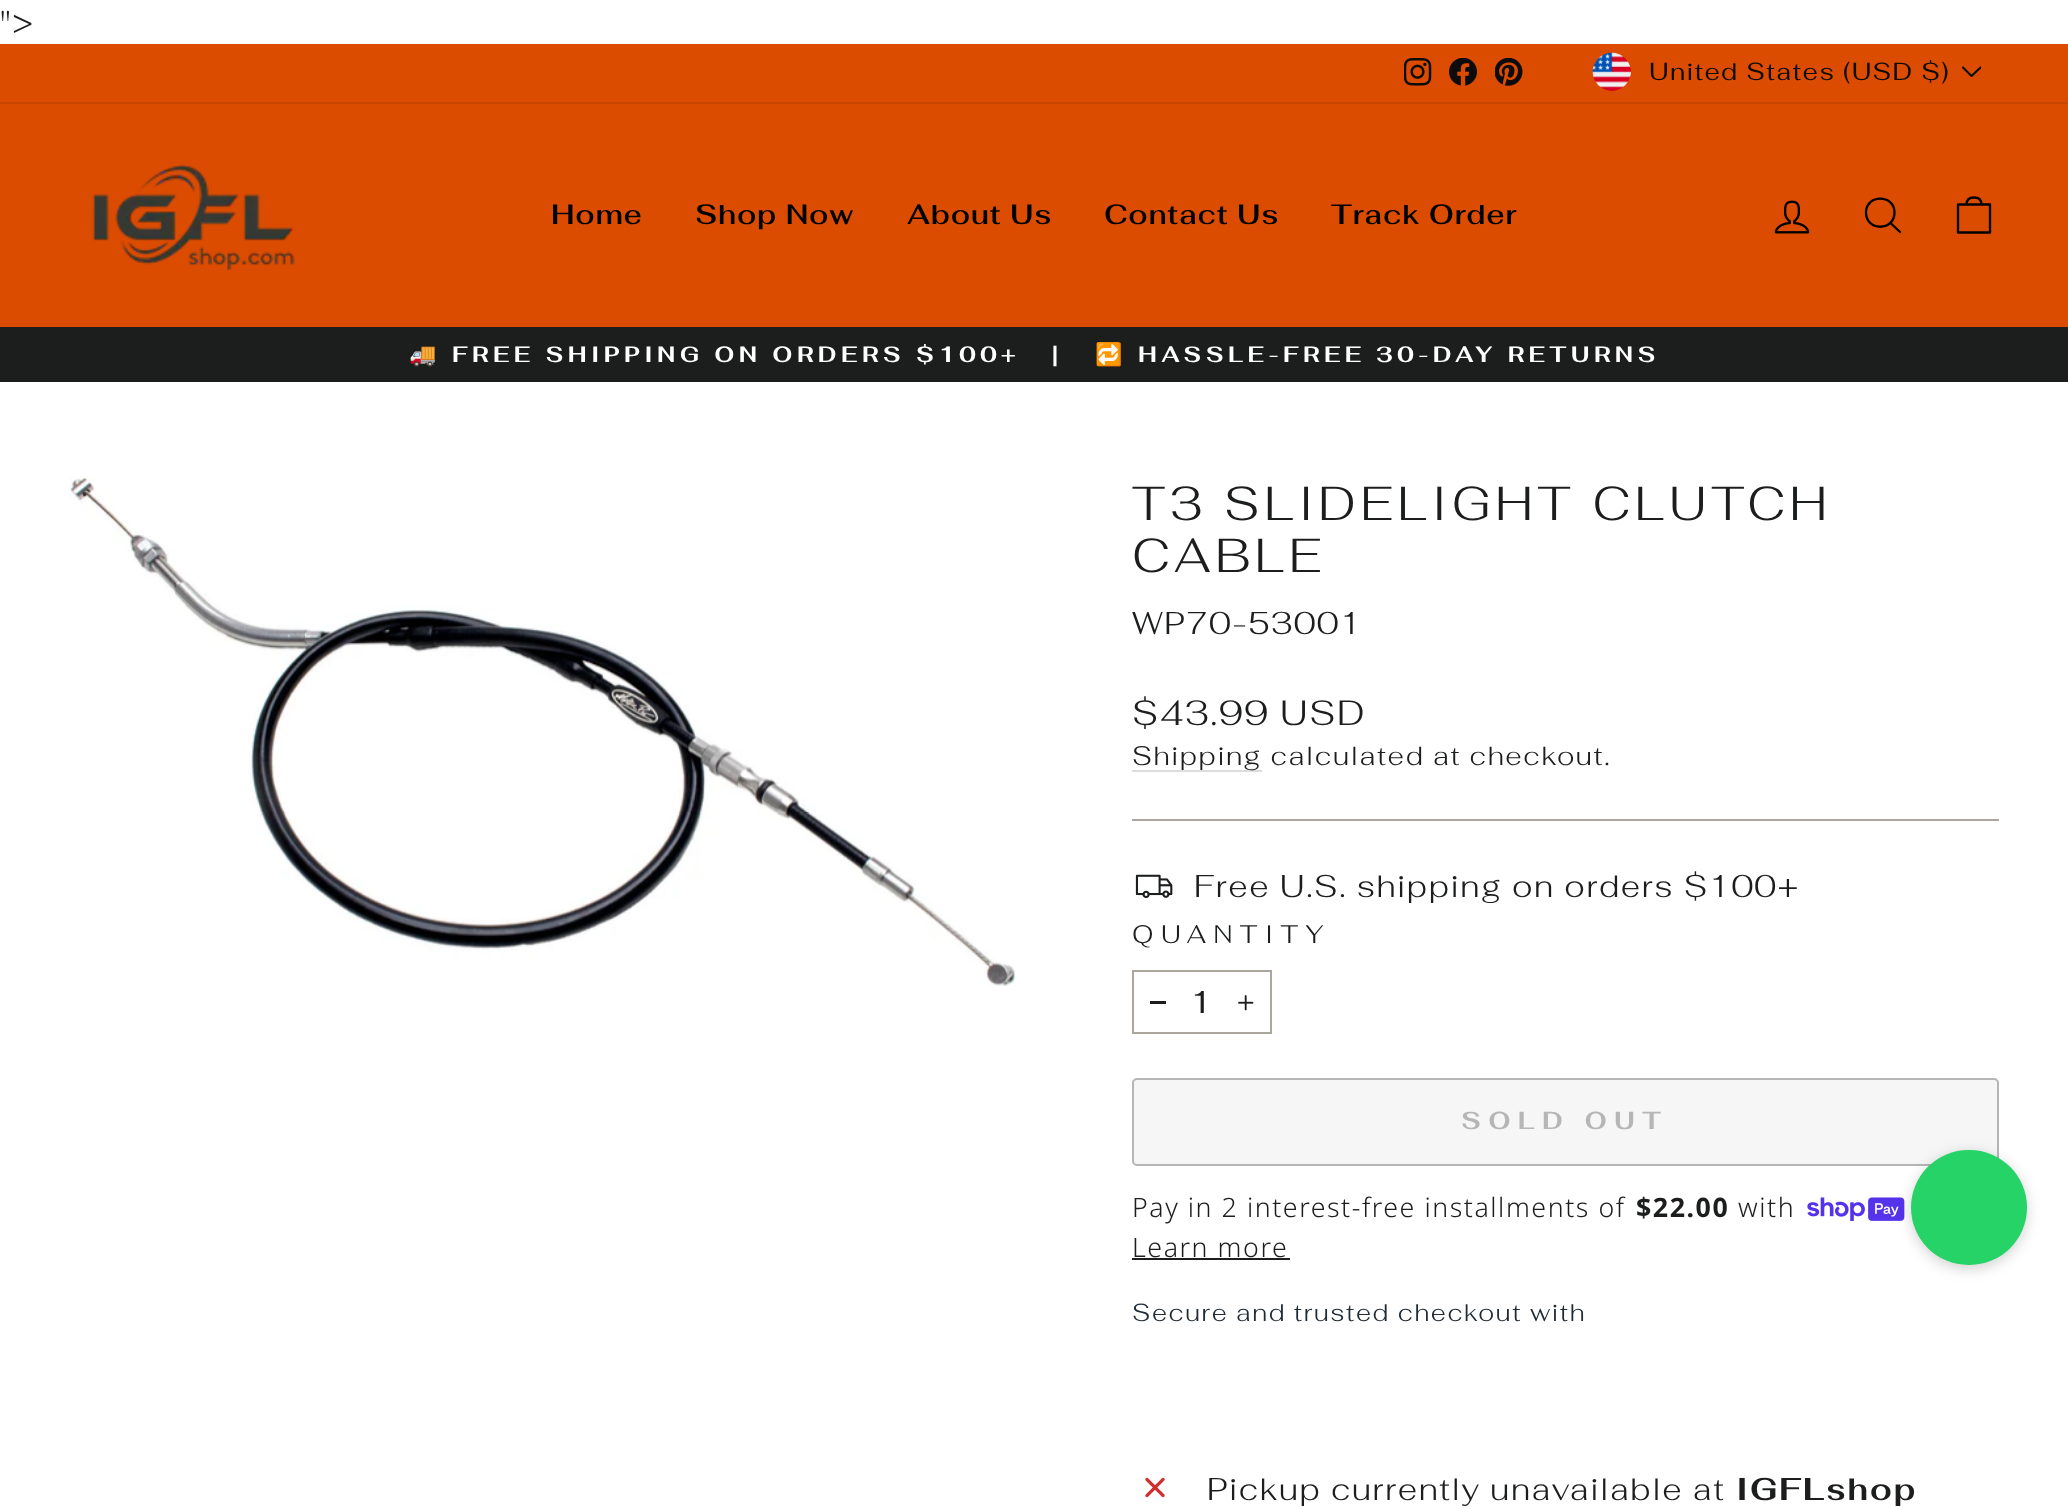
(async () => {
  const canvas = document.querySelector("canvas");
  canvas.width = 2068;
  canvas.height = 1509;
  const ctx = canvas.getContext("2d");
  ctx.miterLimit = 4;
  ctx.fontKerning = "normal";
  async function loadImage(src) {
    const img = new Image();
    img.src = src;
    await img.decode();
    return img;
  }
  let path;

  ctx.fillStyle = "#ffffff";
  ctx.fillRect(0, 0, 2068, 1509);
  ctx.fillStyle = "#dc4c00";
  ctx.fillRect(0, 44, 2068, 58);
  ctx.drawImage(await loadImage("img/1.png"), 1404, 58, 28, 28);
  ctx.drawImage(await loadImage("img/2.png"), 1449, 58, 28, 28);
  ctx.drawImage(await loadImage("img/3.png"), 1495, 58, 28, 28);
  ctx.drawImage(await loadImage("img/4.png"), 1592, 52, 39, 39);
  ctx.save();
  ctx.beginPath();
  ctx.rect(1962, 63, 19, 19);
  ctx.clip();
  path = new Path2D("M1963 67.5L1971.5 76L1980.5 67.5");
  ctx.strokeStyle = "#0d0c0c";
  ctx.lineWidth = 2.1;
  ctx.lineCap = "round";
  ctx.lineJoin = "round";
  ctx.stroke(path);
  ctx.restore();
  ctx.fillRect(0, 104, 2068, 223);
  ctx.fillStyle = "#c74601";
  ctx.fillRect(0, 102, 2068, 2);
  ctx.drawImage(await loadImage("img/5.png"), 92, 164, 203, 107);
  ctx.drawImage(await loadImage("img/6.png"), 1774, 200, 36, 34);
  path = new Path2D("M1894.5 212.5C1894.5 231.5 1866 231.5 1866 212.5C1866 194 1894.5 194 1894.5 212.5ZM1900 232L1890.5 223");
  ctx.strokeStyle = "#000000";
  ctx.lineWidth = 2.3;
  ctx.lineCap = "round";
  ctx.lineJoin = "round";
  ctx.stroke(path);
  path = new Path2D("M1958 204.5H1990V232.5H1958ZM1966.5 204.5C1966.5 199 1970 197.5 1974 197.5C1978 197.5 1981.5 199 1981.5 204.5");
  ctx.stroke(path);
  ctx.fillStyle = "#1c1d1d";
  ctx.fillRect(0, 327, 2068, 55);
  ctx.drawImage(await loadImage("img/7.png"), 70, 478, 945, 508);
  ctx.fillStyle = "#dddddd";
  ctx.fillRect(1132, 770, 130, 2);
  ctx.fillStyle = "#aca79e";
  ctx.fillRect(1132, 819, 867, 2);
  ctx.drawImage(await loadImage("img/8.png"), 1135, 874, 38, 24);
  ctx.strokeStyle = "#aca79e";
  ctx.lineWidth = 2;
  ctx.lineJoin = "miter";
  ctx.strokeRect(1133, 971, 138, 62);
  ctx.fillStyle = "#1c1d1d";
  ctx.fillRect(1150, 1001, 16, 3);
  ctx.drawImage(await loadImage("img/9.png"), 1238, 995, 16, 16);
  ctx.fillStyle = "#f6f6f6";
  ctx.beginPath();
  ctx.roundRect(1133, 1079, 865, 86, 4);
  ctx.fill();
  ctx.strokeStyle = "#b6b6b6";
  ctx.stroke();
  ctx.drawImage(await loadImage("img/10.png"), 1807, 1197, 98, 24);
  ctx.fillStyle = "#1c1d1d";
  ctx.fillRect(1132, 1258, 158, 2);
  ctx.drawImage(await loadImage("img/11.png"), 1145, 1477, 20, 21);
  ctx.fillStyle = "rgba(0, 0, 0, 0.18)";
  ctx.filter = "blur(7px)";
  ctx.beginPath();
  ctx.roundRect(1911, 1153, 116, 116, 58);
  ctx.fill();
  ctx.filter = "none";
  ctx.fillStyle = "#25d366";
  ctx.beginPath();
  ctx.roundRect(1911, 1150, 116, 115, 57.5);
  ctx.fill();
  ctx.letterSpacing = "1.55px";
  ctx.font = "300 31.5px Fahkwang";
  ctx.fillStyle = "#1c1d1d";
  ctx.fillText("\">", 0, 33);
  ctx.letterSpacing = "1.25px";
  ctx.font = "24.5px Fahkwang";
  ctx.fillStyle = "#0d0c0c";
  ctx.fillText("United States (USD $)", 1649, 80);
  ctx.letterSpacing = "0.75px";
  ctx.font = "600 28px Fahkwang";
  ctx.fillStyle = "#000000";
  for (const [text, x, y] of [
    ["Home", 551, 224],
    ["Shop Now", 695, 224],
    ["About Us", 907, 224],
    ["Contact Us", 1104, 224],
    ["Track Order", 1331, 224],
  ]) {
    ctx.fillText(text, x, y);
  }
  ctx.letterSpacing = "4.4px";
  ctx.font = "bold 22.05px Noto Color Emoji";
  ctx.fillStyle = "#ffffff";
  ctx.fillText("🚚", 409, 362);
  ctx.font = "bold 22.05px Fahkwang";
  ctx.fillText("FREE SHIPPING ON ORDERS $100+   |", 452, 362);
  ctx.font = "bold 22.05px Noto Color Emoji";
  ctx.fillText("🔁", 1095, 362);
  ctx.font = "bold 22.05px Fahkwang";
  ctx.fillText("HASSLE-FREE 30-DAY RETURNS", 1138, 362);
  ctx.letterSpacing = "4.75px";
  ctx.font = "300 47.6px Fahkwang";
  ctx.fillStyle = "#1c1d1d";
  ctx.fillText("T3 SLIDELIGHT CLUTCH", 1132, 520);
  ctx.fillText("CABLE", 1132, 572);
  ctx.letterSpacing = "1.55px";
  ctx.font = "300 31.5px Fahkwang";
  ctx.fillText("WP70-53001", 1132, 634);
  ctx.font = "300 35px Fahkwang";
  ctx.fillText("$43.99 USD", 1132, 725);
  ctx.font = "300 26.75px Fahkwang";
  ctx.fillText("Shipping calculated at checkout.", 1132, 765);
  ctx.font = "300 31.5px Fahkwang";
  ctx.fillText("Free U.S. shipping on orders $100+", 1194, 897);
  ctx.letterSpacing = "7.5px";
  ctx.font = "300 25.25px Fahkwang";
  ctx.fillText("QUANTITY", 1132, 943);
  ctx.letterSpacing = "1.55px";
  ctx.font = "31.5px Fahkwang";
  ctx.fillText("1", 1190, 1013);
  ctx.letterSpacing = "7.25px";
  ctx.font = "bold 24.5px Fahkwang";
  ctx.fillStyle = "#b6b6b6";
  ctx.fillText("SOLD OUT", 1461, 1129);
  ctx.letterSpacing = "1.55px";
  ctx.font = "300 26.75px Noto Sans";
  ctx.fillStyle = "#1c1d1d";
  ctx.fillText("Pay in 2 interest-free installments of", 1132, 1217);
  ctx.font = "bold 26.75px Noto Sans";
  ctx.fillText("$22.00", 1636, 1217);
  ctx.font = "300 26.75px Noto Sans";
  ctx.fillText("with", 1738, 1217);
  ctx.fillText("Learn more", 1132, 1257);
  ctx.font = "300 24.5px Fahkwang";
  ctx.fillStyle = "#212b35";
  ctx.fillText("Secure and trusted checkout with", 1132, 1321);
  ctx.font = "300 31.5px Fahkwang";
  ctx.fillStyle = "#1c1d1d";
  ctx.fillText("Pickup currently unavailable at", 1207, 1500);
  ctx.font = "bold 31.5px Fahkwang";
  ctx.fillText("IGFLshop", 1736, 1500);
})();
